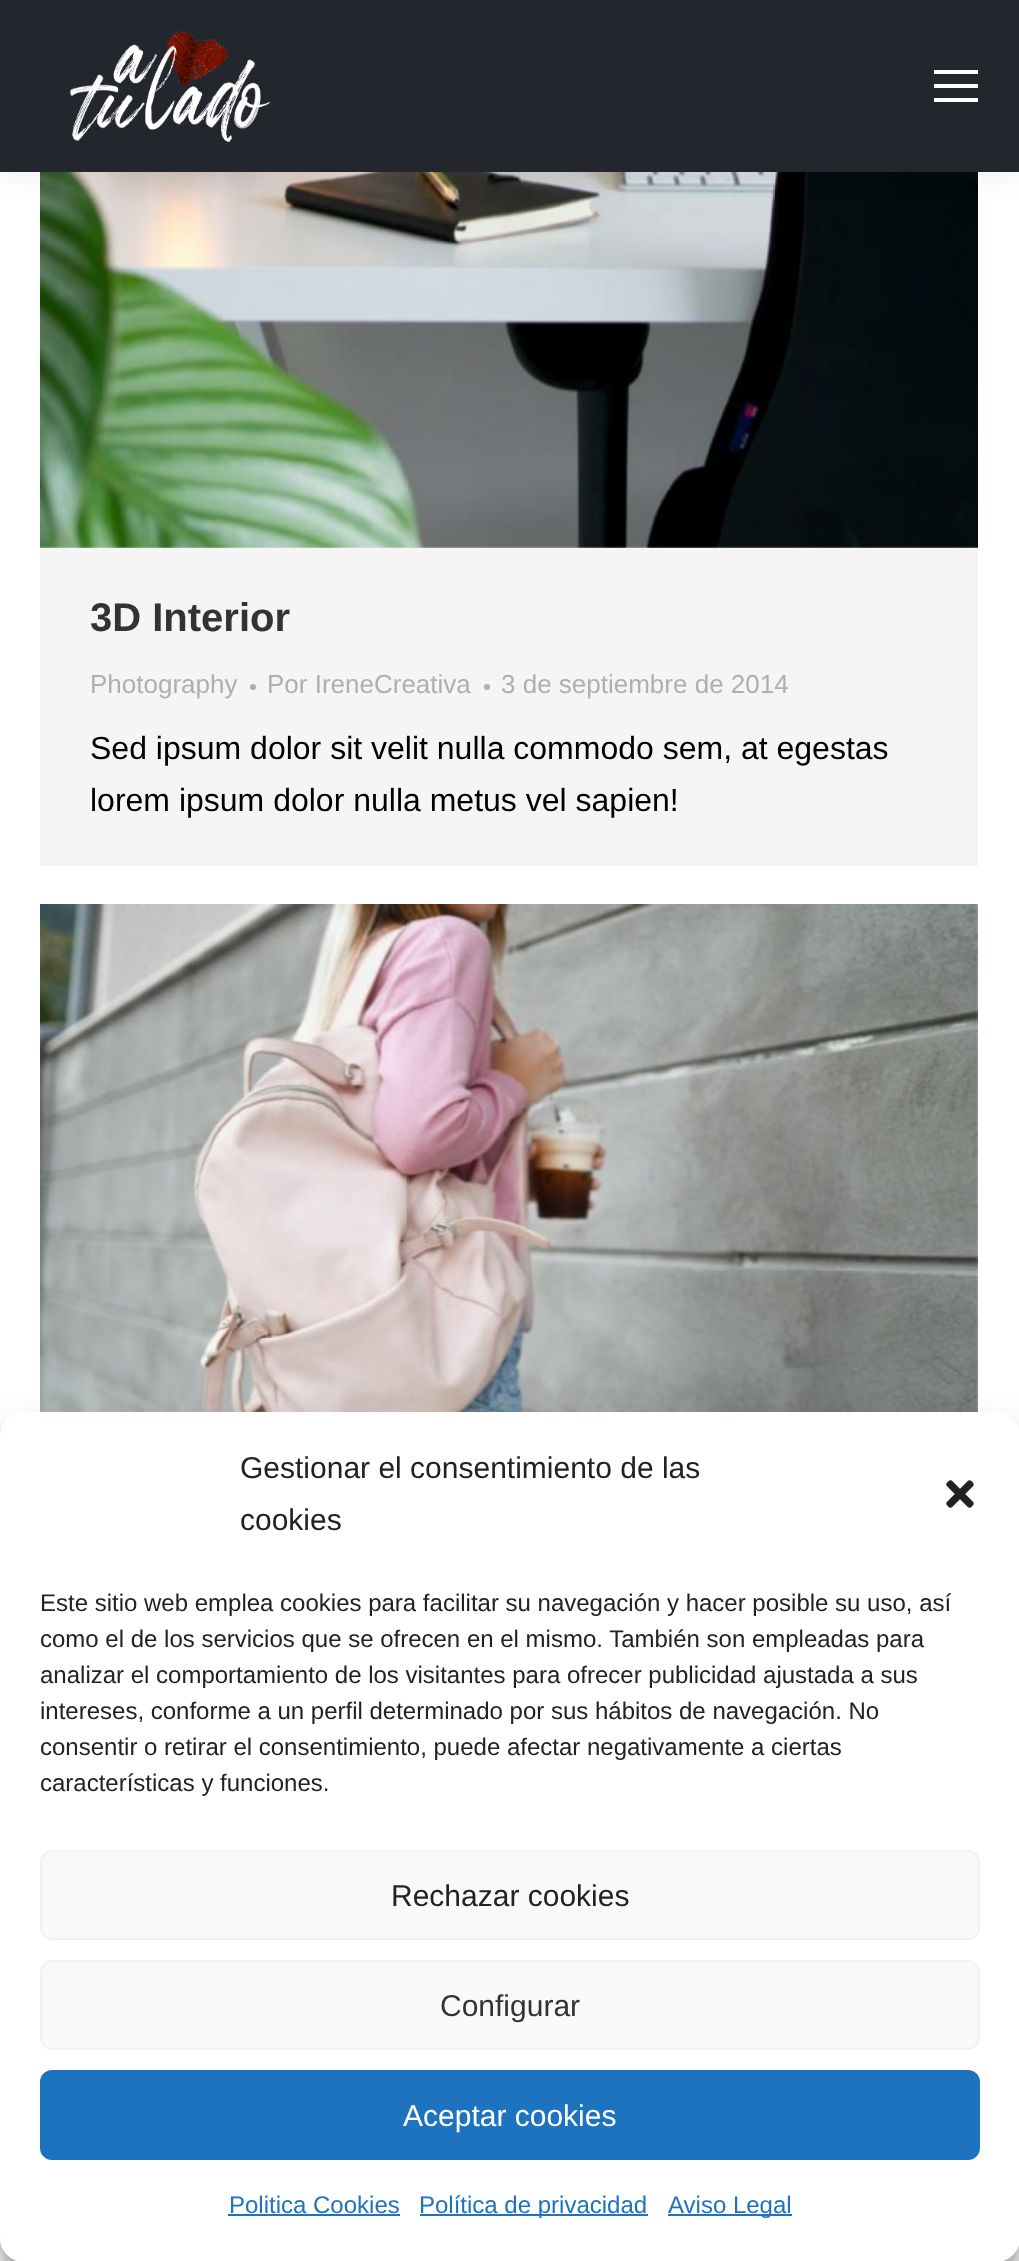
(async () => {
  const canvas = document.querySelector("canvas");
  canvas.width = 1019;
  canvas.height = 2261;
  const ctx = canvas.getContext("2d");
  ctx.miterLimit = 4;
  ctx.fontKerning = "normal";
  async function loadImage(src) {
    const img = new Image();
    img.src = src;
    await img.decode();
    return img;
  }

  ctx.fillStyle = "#ffffff";
  ctx.fillRect(0, 0, 1019, 2261);
  ctx.fillStyle = "#f5f5f5";
  ctx.fillRect(40, 546, 938, 320);
  ctx.drawImage(await loadImage("img/2.png"), 40, 172, 938, 376);
  ctx.fillStyle = "rgba(0, 0, 0, 0.07)";
  ctx.filter = "blur(15px)";
  ctx.beginPath();
  ctx.rect(-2, -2, 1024, 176);
  ctx.fill();
  ctx.filter = "none";
  ctx.fillStyle = "#23262d";
  ctx.fillRect(0, 0, 1019, 172);
  ctx.drawImage(await loadImage("img/1.png"), 69, 30, 202, 112);
  for (const [x, y, w, h, color] of [
    [934, 70, 44, 4, "#ffffff"],
    [934, 84, 44, 4, "#ffffff"],
    [934, 98, 44, 4, "#ffffff"],
  ]) {
    ctx.fillStyle = color;
    ctx.fillRect(x, y, w, h);
  }
  ctx.fillStyle = "#adafb3";
  ctx.beginPath();
  ctx.arc(253, 687, 3, 0, Math.PI * 2);
  ctx.fill();
  ctx.beginPath();
  ctx.arc(487, 687, 3, 0, Math.PI * 2);
  ctx.fill();
  ctx.drawImage(await loadImage("img/3.png"), 40, 904, 938, 508);
  ctx.fillStyle = "rgba(0, 0, 0, 0.23)";
  ctx.filter = "blur(6px)";
  ctx.beginPath();
  ctx.roundRect(0, 1424, 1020, 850, 24);
  ctx.fill();
  ctx.filter = "none";
  ctx.fillStyle = "rgba(0, 0, 0, 0.19)";
  ctx.filter = "blur(20px)";
  ctx.beginPath();
  ctx.roundRect(0, 1432, 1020, 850, 24);
  ctx.fill();
  ctx.filter = "none";
  ctx.fillStyle = "#ffffff";
  ctx.beginPath();
  ctx.roundRect(0, 1412, 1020, 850, 24);
  ctx.fill();
  ctx.drawImage(await loadImage("img/4.png"), 946, 1480, 28, 28);
  ctx.fillStyle = "#f9f9f9";
  ctx.beginPath();
  ctx.roundRect(41, 1851, 938, 88, 11);
  ctx.fill();
  ctx.strokeStyle = "#f2f2f2";
  ctx.lineWidth = 2;
  ctx.stroke();
  ctx.beginPath();
  ctx.roundRect(41, 1961, 938, 88, 11);
  ctx.fill();
  ctx.stroke();
  ctx.fillStyle = "#1e73be";
  ctx.beginPath();
  ctx.roundRect(41, 2071, 938, 88, 11);
  ctx.fill();
  ctx.strokeStyle = "#1e73be";
  ctx.stroke();
  for (const [x, y, w, h, color] of [
    [228, 2214, 172, 2, "#1e73be"],
    [420, 2214, 228, 2, "#1e73be"],
    [668, 2214, 124, 2, "#1e73be"],
  ]) {
    ctx.fillStyle = color;
    ctx.fillRect(x, y, w, h);
  }
  ctx.font = "bold 40px Liberation Sans";
  ctx.fillStyle = "#333333";
  ctx.fillText("3D Interior", 90, 631);
  ctx.font = "26px Liberation Sans";
  ctx.fillStyle = "#adafb3";
  for (const [text, x, y] of [
    ["Photography", 90, 693],
    ["Por IreneCreativa", 267, 693],
    ["3 de septiembre de 2014", 501, 693],
  ]) {
    ctx.fillText(text, x, y);
  }
  ctx.font = "32px Liberation Sans";
  ctx.fillStyle = "#000000";
  ctx.fillText("Sed ipsum dolor sit velit nulla commodo sem, at egestas", 90, 759);
  ctx.fillText("lorem ipsum dolor nulla metus vel sapien!", 90, 811);
  ctx.font = "30px Liberation Sans";
  ctx.fillStyle = "#222222";
  ctx.fillText("Gestionar el consentimiento de las", 240, 1478);
  ctx.fillText("cookies", 240, 1530);
  ctx.font = "24px Liberation Sans";
  for (const [text, x, y] of [
    ["Este sitio web emplea cookies para facilitar su navegación y hacer posible su uso, así", 40, 1611],
    ["como el de los servicios que se ofrecen en el mismo. También son empleadas para", 40, 1647],
    ["analizar el comportamiento de los visitantes para ofrecer publicidad ajustada a sus", 40, 1683],
    ["intereses, conforme a un perfil determinado por sus hábitos de navegación. No", 40, 1719],
    ["consentir o retirar el consentimiento, puede afectar negativamente a ciertas", 40, 1755],
    ["características y funciones.", 40, 1791],
  ]) {
    ctx.fillText(text, x, y);
  }
  ctx.font = "30px Liberation Sans";
  ctx.fillText("Rechazar cookies", 391, 1906);
  ctx.fillStyle = "#333333";
  ctx.fillText("Configurar", 440, 2016);
  ctx.fillStyle = "#ffffff";
  ctx.fillText("Aceptar cookies", 403, 2126);
  ctx.font = "24px Liberation Sans";
  ctx.fillStyle = "#1e73be";
  for (const [text, x, y] of [
    ["Politica Cookies", 229, 2213],
    ["Política de privacidad", 419, 2213],
    ["Aviso Legal", 668, 2213],
  ]) {
    ctx.fillText(text, x, y);
  }
})();
